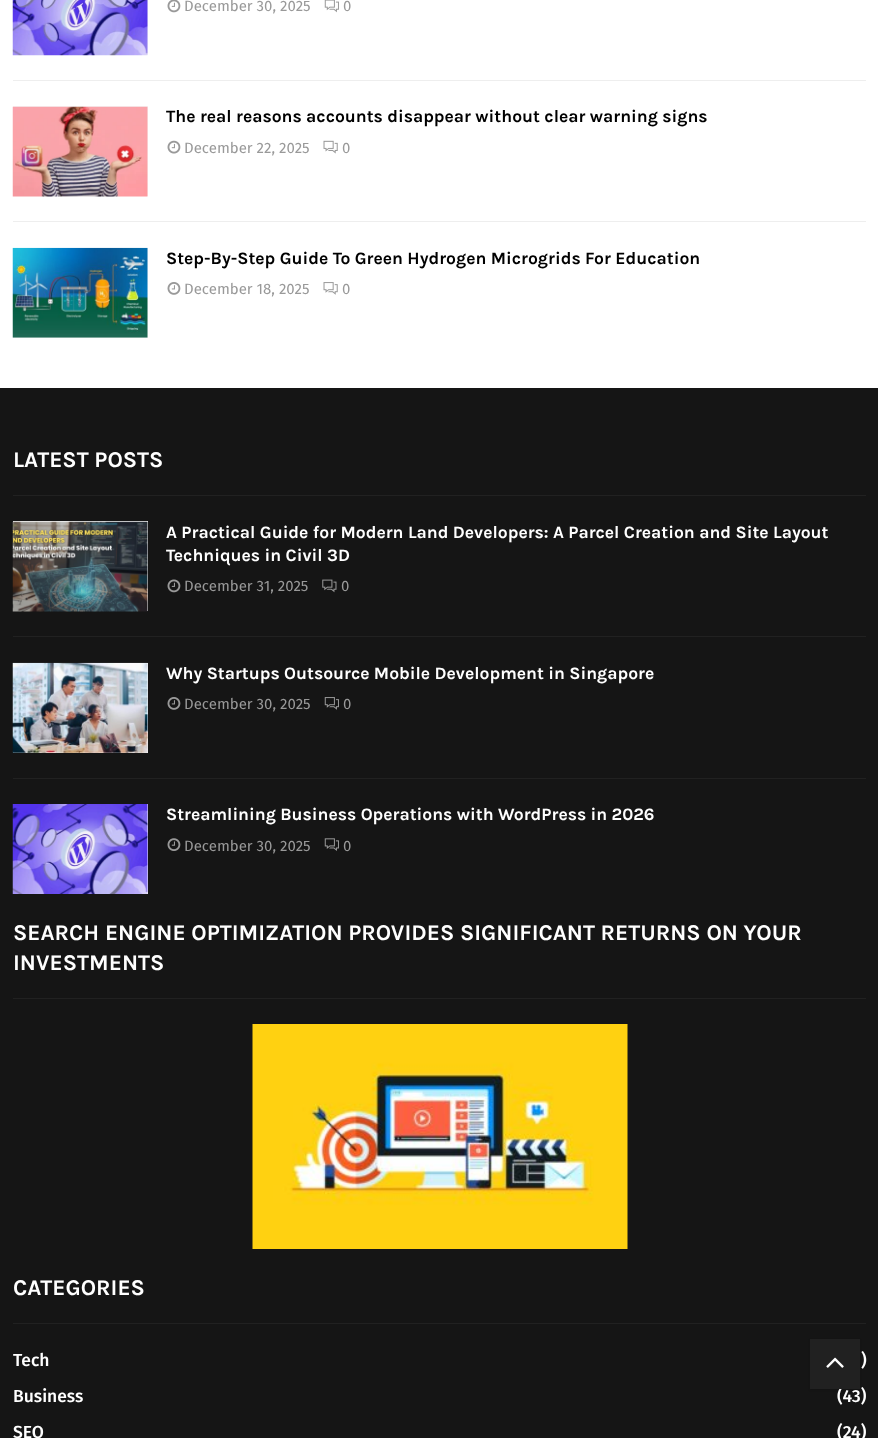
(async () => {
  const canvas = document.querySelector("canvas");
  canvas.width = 878;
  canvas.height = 1438;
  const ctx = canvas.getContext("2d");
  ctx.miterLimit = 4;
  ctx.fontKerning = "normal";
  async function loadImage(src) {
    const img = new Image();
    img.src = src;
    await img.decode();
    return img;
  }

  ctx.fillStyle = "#ffffff";
  ctx.fillRect(0, 0, 878, 1438);
  ctx.fillStyle = "#eeeeee";
  ctx.fillRect(13, 80, 853, 1);
  ctx.fillStyle = "#f5f5f5";
  ctx.fillRect(147, 0, 1, 55);
  ctx.drawImage(await loadImage("img/1.png"), 12, 0, 136, 56);
  ctx.drawImage(await loadImage("img/2.png"), 167, 0, 14, 13);
  ctx.drawImage(await loadImage("img/3.png"), 324, 0, 15, 13);
  ctx.fillStyle = "#eeeeee";
  ctx.fillRect(13, 221, 853, 1);
  ctx.fillStyle = "#f5f5f5";
  ctx.fillRect(13, 106, 135, 90);
  ctx.drawImage(await loadImage("img/4.png"), 12, 106, 136, 91);
  ctx.drawImage(await loadImage("img/5.png"), 167, 140, 14, 14);
  ctx.drawImage(await loadImage("img/6.png"), 323, 140, 15, 14);
  ctx.fillRect(13, 248, 135, 90);
  ctx.drawImage(await loadImage("img/7.png"), 12, 247, 136, 91);
  ctx.drawImage(await loadImage("img/8.png"), 167, 282, 14, 13);
  ctx.drawImage(await loadImage("img/9.png"), 323, 282, 15, 13);
  for (const [x, y, w, h, color] of [
    [0, 388, 878, 1050, "#151515"],
    [13, 495, 853, 1, "#212121"],
    [13, 636, 853, 1, "#212121"],
    [13, 521, 135, 90, "#f5f5f5"],
  ]) {
    ctx.fillStyle = color;
    ctx.fillRect(x, y, w, h);
  }
  ctx.drawImage(await loadImage("img/10.png"), 12, 521, 136, 91);
  ctx.drawImage(await loadImage("img/11.png"), 167, 579, 14, 14);
  ctx.drawImage(await loadImage("img/12.png"), 322, 579, 15, 14);
  ctx.fillStyle = "#212121";
  ctx.fillRect(13, 778, 853, 1);
  ctx.fillStyle = "#f5f5f5";
  ctx.fillRect(13, 663, 135, 90);
  ctx.drawImage(await loadImage("img/13.png"), 12, 662, 136, 91);
  ctx.drawImage(await loadImage("img/14.png"), 167, 697, 14, 13);
  ctx.drawImage(await loadImage("img/15.png"), 324, 697, 15, 13);
  ctx.fillRect(147, 804, 1, 90);
  ctx.drawImage(await loadImage("img/16.png"), 12, 804, 136, 90);
  ctx.drawImage(await loadImage("img/17.png"), 167, 838, 14, 13);
  ctx.drawImage(await loadImage("img/18.png"), 324, 838, 15, 13);
  ctx.fillStyle = "#212121";
  ctx.fillRect(13, 998, 853, 1);
  ctx.drawImage(await loadImage("img/19.png"), 252, 1024, 376, 225);
  ctx.fillRect(13, 1323, 853, 1);
  ctx.fillStyle = "rgba(0, 0, 0, 0.1)";
  ctx.filter = "blur(1px)";
  ctx.beginPath();
  ctx.rect(810, 1340, 50, 50);
  ctx.fill();
  ctx.filter = "none";
  ctx.font = "15px Fira Sans";
  ctx.fillStyle = "#999999";
  ctx.fillText("December 30, 2025", 184, 11);
  ctx.fillText("0", 343, 11);
  ctx.font = "bold 17.5px Karla";
  ctx.fillStyle = "#000000";
  ctx.fillText("The real reasons accounts disappear without clear warning signs", 166, 122);
  ctx.font = "15px Fira Sans";
  ctx.fillStyle = "#999999";
  ctx.fillText("December 22, 2025", 184, 153);
  ctx.fillText("0", 342, 153);
  ctx.font = "bold 17.5px Karla";
  ctx.fillStyle = "#000000";
  ctx.fillText("Step-By-Step Guide To Green Hydrogen Microgrids For Education", 166, 264);
  ctx.font = "15px Fira Sans";
  ctx.fillStyle = "#999999";
  ctx.fillText("December 18, 2025", 184, 294);
  ctx.fillText("0", 342, 294);
  ctx.font = "bold 22.5px Karla";
  ctx.fillStyle = "#ffffff";
  ctx.fillText("LATEST POSTS", 13, 467);
  ctx.font = "bold 17.5px Karla";
  ctx.fillText("A Practical Guide for Modern Land Developers: A Parcel Creation and Site Layout", 166, 538);
  ctx.fillText("Techniques in Civil 3D", 166, 561);
  ctx.font = "15px Fira Sans";
  ctx.fillStyle = "#999999";
  ctx.fillText("December 31, 2025", 184, 591);
  ctx.fillText("0", 341, 591);
  ctx.font = "bold 17.5px Karla";
  ctx.fillStyle = "#ffffff";
  ctx.fillText("Why Startups Outsource Mobile Development in Singapore", 166, 679);
  ctx.font = "15px Fira Sans";
  ctx.fillStyle = "#999999";
  ctx.fillText("December 30, 2025", 184, 709);
  ctx.fillText("0", 343, 709);
  ctx.font = "bold 17.5px Karla";
  ctx.fillStyle = "#ffffff";
  ctx.fillText("Streamlining Business Operations with WordPress in 2026", 166, 820);
  ctx.font = "15px Fira Sans";
  ctx.fillStyle = "#999999";
  ctx.fillText("December 30, 2025", 184, 851);
  ctx.fillText("0", 343, 851);
  ctx.font = "bold 22.5px Karla";
  ctx.fillStyle = "#ffffff";
  for (const [text, x, y] of [
    ["SEARCH ENGINE OPTIMIZATION PROVIDES SIGNIFICANT RETURNS ON YOUR", 13, 940],
    ["INVESTMENTS", 13, 970],
    ["CATEGORIES", 13, 1295],
  ]) {
    ctx.fillText(text, x, y);
  }
  ctx.font = "500 17.5px Fira Sans";
  for (const [text, x, y] of [
    ["Tech", 13, 1366],
    [")", 861, 1366],
    ["Business", 13, 1402],
    ["(43)", 837, 1402],
    ["SEO", 13, 1438],
    ["(24)", 837, 1438],
  ]) {
    ctx.fillText(text, x, y);
  }
  ctx.fillStyle = "#212121";
  ctx.fillRect(810, 1339, 50, 50);
  ctx.drawImage(await loadImage("img/20.png"), 826, 1357, 18, 11);
})();
